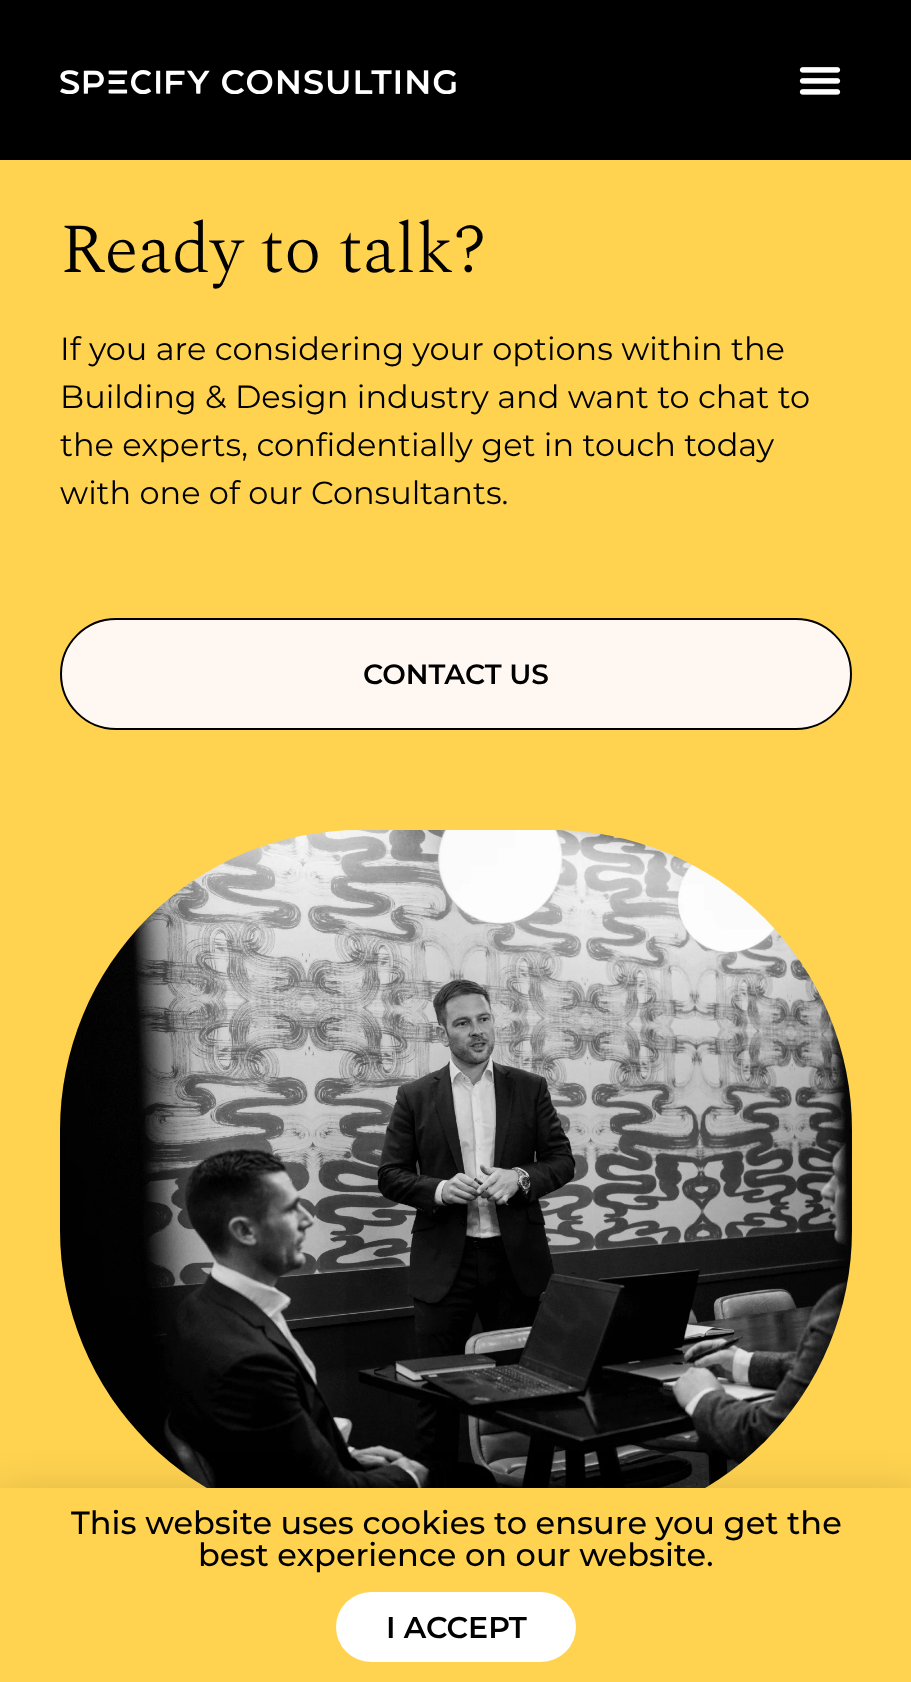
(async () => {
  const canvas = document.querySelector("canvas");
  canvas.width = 911;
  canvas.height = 1682;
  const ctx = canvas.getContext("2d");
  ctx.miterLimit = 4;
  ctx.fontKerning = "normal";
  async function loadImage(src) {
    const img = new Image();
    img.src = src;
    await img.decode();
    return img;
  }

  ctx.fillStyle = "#ffd350";
  ctx.fillRect(0, 0, 911, 1682);
  ctx.fillStyle = "#000000";
  ctx.fillRect(0, 0, 911, 160);
  ctx.drawImage(await loadImage("img/1.png"), 60, 70, 396, 24);
  ctx.drawImage(await loadImage("img/2.png"), 799, 67, 42, 28);
  ctx.fillStyle = "#fff8f2";
  ctx.beginPath();
  ctx.roundRect(61, 619, 790, 110, 55);
  ctx.fill();
  ctx.strokeStyle = "#000000";
  ctx.lineWidth = 2;
  ctx.stroke();
  ctx.drawImage(await loadImage("img/3.png"), 60, 830, 792, 658);
  ctx.fillStyle = "rgba(0, 0, 0, 0.2)";
  ctx.filter = "blur(23px)";
  ctx.beginPath();
  ctx.rect(-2, 1498, 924, 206);
  ctx.fill();
  ctx.filter = "none";
  ctx.fillStyle = "#ffd350";
  ctx.fillRect(0, 1488, 911, 194);
  ctx.fillStyle = "#ffffff";
  ctx.beginPath();
  ctx.roundRect(336, 1592, 240, 70, 35);
  ctx.fill();
  ctx.font = "300 70px Spectral";
  ctx.fillStyle = "#000000";
  ctx.fillText("Ready to talk?", 60, 272);
  ctx.font = "32px Montserrat";
  for (const [text, x, y] of [
    ["If you are considering your options within the", 60, 360],
    ["Building & Design industry and want to chat to", 60, 408],
    ["the experts, confidentially get in touch today", 60, 456],
    ["with one of our Consultants.", 60, 504],
  ]) {
    ctx.fillText(text, x, y);
  }
  ctx.font = "600 28px Montserrat";
  ctx.fillText("CONTACT US", 363, 684);
  ctx.font = "500 32px Montserrat";
  ctx.fillText("This website uses cookies to ensure you get the", 71, 1534);
  ctx.fillText("best experience on our website.", 198, 1566);
  ctx.font = "600 30px Montserrat";
  ctx.fillText("I ACCEPT", 386, 1638);
})();
